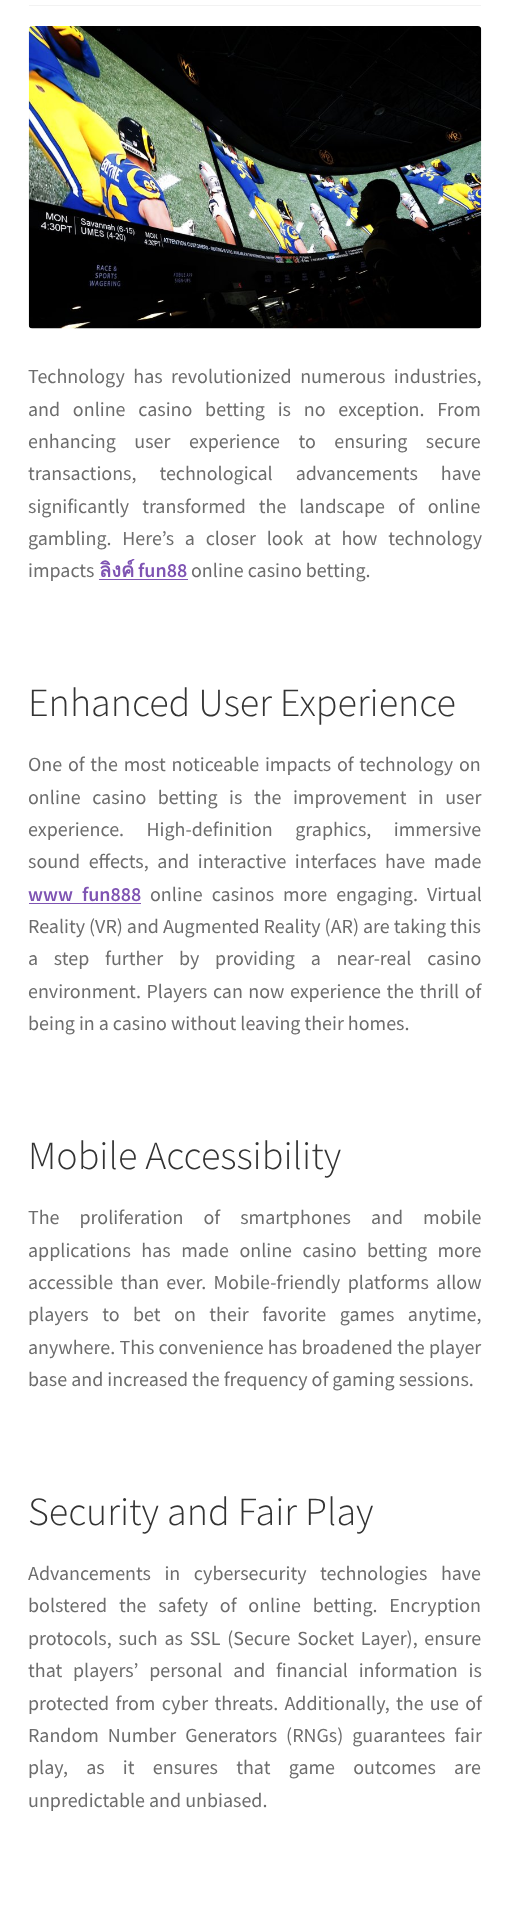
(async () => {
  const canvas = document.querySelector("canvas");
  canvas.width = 509;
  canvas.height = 1909;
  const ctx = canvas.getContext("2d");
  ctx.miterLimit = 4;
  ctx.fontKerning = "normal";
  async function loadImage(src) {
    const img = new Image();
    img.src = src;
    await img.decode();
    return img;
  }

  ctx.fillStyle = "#ffffff";
  ctx.fillRect(0, 0, 509, 1909);
  ctx.fillStyle = "#f2f2f2";
  ctx.fillRect(29, 5, 452, 1);
  ctx.drawImage(await loadImage("img/1.png"), 28, 26, 454, 303);
  ctx.fillStyle = "#7f54b3";
  ctx.fillRect(99, 579, 89, 1);
  ctx.fillRect(29, 903, 112, 1);
  ctx.wordSpacing = "4.5px";
  ctx.font = "20px Source Sans Pro";
  ctx.fillStyle = "#6d6d6d";
  ctx.fillText("Technology has revolutionized numerous industries,", 28, 383);
  ctx.wordSpacing = "8.75px";
  ctx.fillText("and online casino betting is no exception. From", 28, 416);
  ctx.wordSpacing = "14.5px";
  ctx.fillText("enhancing user experience to ensuring secure", 28, 448);
  ctx.wordSpacing = "19px";
  ctx.fillText("transactions, technological advancements have", 28, 480);
  ctx.wordSpacing = "9px";
  ctx.fillText("significantly transformed the landscape of online", 28, 513);
  ctx.wordSpacing = "6.75px";
  ctx.fillText("gambling. Here’s a closer look at how technology", 28, 545);
  ctx.wordSpacing = "0px";
  ctx.fillText("impacts", 28, 577);
  ctx.font = "bold 20px Loma";
  ctx.fillStyle = "#7f54b3";
  ctx.fillText("ลิงค์", 99, 577);
  ctx.font = "600 20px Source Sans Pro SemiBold";
  ctx.fillText("fun88", 138, 577);
  ctx.font = "20px Source Sans Pro";
  ctx.fillStyle = "#6d6d6d";
  ctx.fillText("online casino betting.", 191, 577);
  ctx.font = "300 40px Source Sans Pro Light";
  ctx.fillStyle = "#333333";
  ctx.fillText("Enhanced User Experience", 28, 716);
  ctx.wordSpacing = "1.75px";
  ctx.font = "20px Source Sans Pro";
  ctx.fillStyle = "#6d6d6d";
  ctx.fillText("One of the most noticeable impacts of technology on", 28, 771);
  ctx.wordSpacing = "7.5px";
  ctx.fillText("online casino betting is the improvement in user", 28, 804);
  ctx.wordSpacing = "18.5px";
  ctx.fillText("experience. High-definition graphics, immersive", 28, 836);
  ctx.wordSpacing = "4.5px";
  ctx.fillText("sound effects, and interactive interfaces have made", 28, 868);
  ctx.wordSpacing = "5px";
  ctx.font = "600 20px Source Sans Pro SemiBold";
  ctx.fillStyle = "#7f54b3";
  ctx.fillText("www fun888", 28, 901);
  ctx.font = "20px Source Sans Pro";
  ctx.fillStyle = "#6d6d6d";
  ctx.fillText("online casinos more engaging. Virtual", 150, 901);
  ctx.wordSpacing = "0px";
  ctx.fillText("Reality (VR) and Augmented Reality (AR) are taking this", 28, 933);
  ctx.wordSpacing = "11.75px";
  ctx.fillText("a step further by providing a near-real casino", 28, 965);
  ctx.wordSpacing = "1.5px";
  ctx.fillText("environment. Players can now experience the thrill of", 28, 998);
  ctx.wordSpacing = "0px";
  ctx.fillText("being in a casino without leaving their homes.", 28, 1030);
  ctx.font = "300 40px Source Sans Pro Light";
  ctx.fillStyle = "#333333";
  ctx.fillText("Mobile Accessibility", 28, 1169);
  ctx.wordSpacing = "16px";
  ctx.font = "20px Source Sans Pro";
  ctx.fillStyle = "#6d6d6d";
  ctx.fillText("The proliferation of smartphones and mobile", 28, 1224);
  ctx.wordSpacing = "6.5px";
  ctx.fillText("applications has made online casino betting more", 28, 1257);
  ctx.wordSpacing = "3.25px";
  ctx.fillText("accessible than ever. Mobile-friendly platforms allow", 28, 1289);
  ctx.wordSpacing = "9.5px";
  ctx.fillText("players to bet on their favorite games anytime,", 28, 1321);
  ctx.wordSpacing = "0.25px";
  ctx.fillText("anywhere. This convenience has broadened the player", 28, 1354);
  ctx.wordSpacing = "0px";
  ctx.fillText("base and increased the frequency of gaming sessions.", 28, 1386);
  ctx.font = "300 40px Source Sans Pro Light";
  ctx.fillStyle = "#333333";
  ctx.fillText("Security and Fair Play", 28, 1525);
  ctx.wordSpacing = "9.5px";
  ctx.font = "20px Source Sans Pro";
  ctx.fillStyle = "#6d6d6d";
  ctx.fillText("Advancements in cybersecurity technologies have", 28, 1580);
  ctx.wordSpacing = "7.75px";
  ctx.fillText("bolstered the safety of online betting. Encryption", 28, 1612);
  ctx.wordSpacing = "2.75px";
  ctx.fillText("protocols, such as SSL (Secure Socket Layer), ensure", 28, 1645);
  ctx.wordSpacing = "6.75px";
  ctx.fillText("that players’ personal and financial information is", 28, 1677);
  ctx.wordSpacing = "2.25px";
  ctx.fillText("protected from cyber threats. Additionally, the use of", 28, 1710);
  ctx.wordSpacing = "5px";
  ctx.fillText("Random Number Generators (RNGs) guarantees fair", 28, 1742);
  ctx.wordSpacing = "14.25px";
  ctx.fillText("play, as it ensures that game outcomes are", 28, 1774);
  ctx.wordSpacing = "0px";
  ctx.fillText("unpredictable and unbiased.", 28, 1807);
})();
